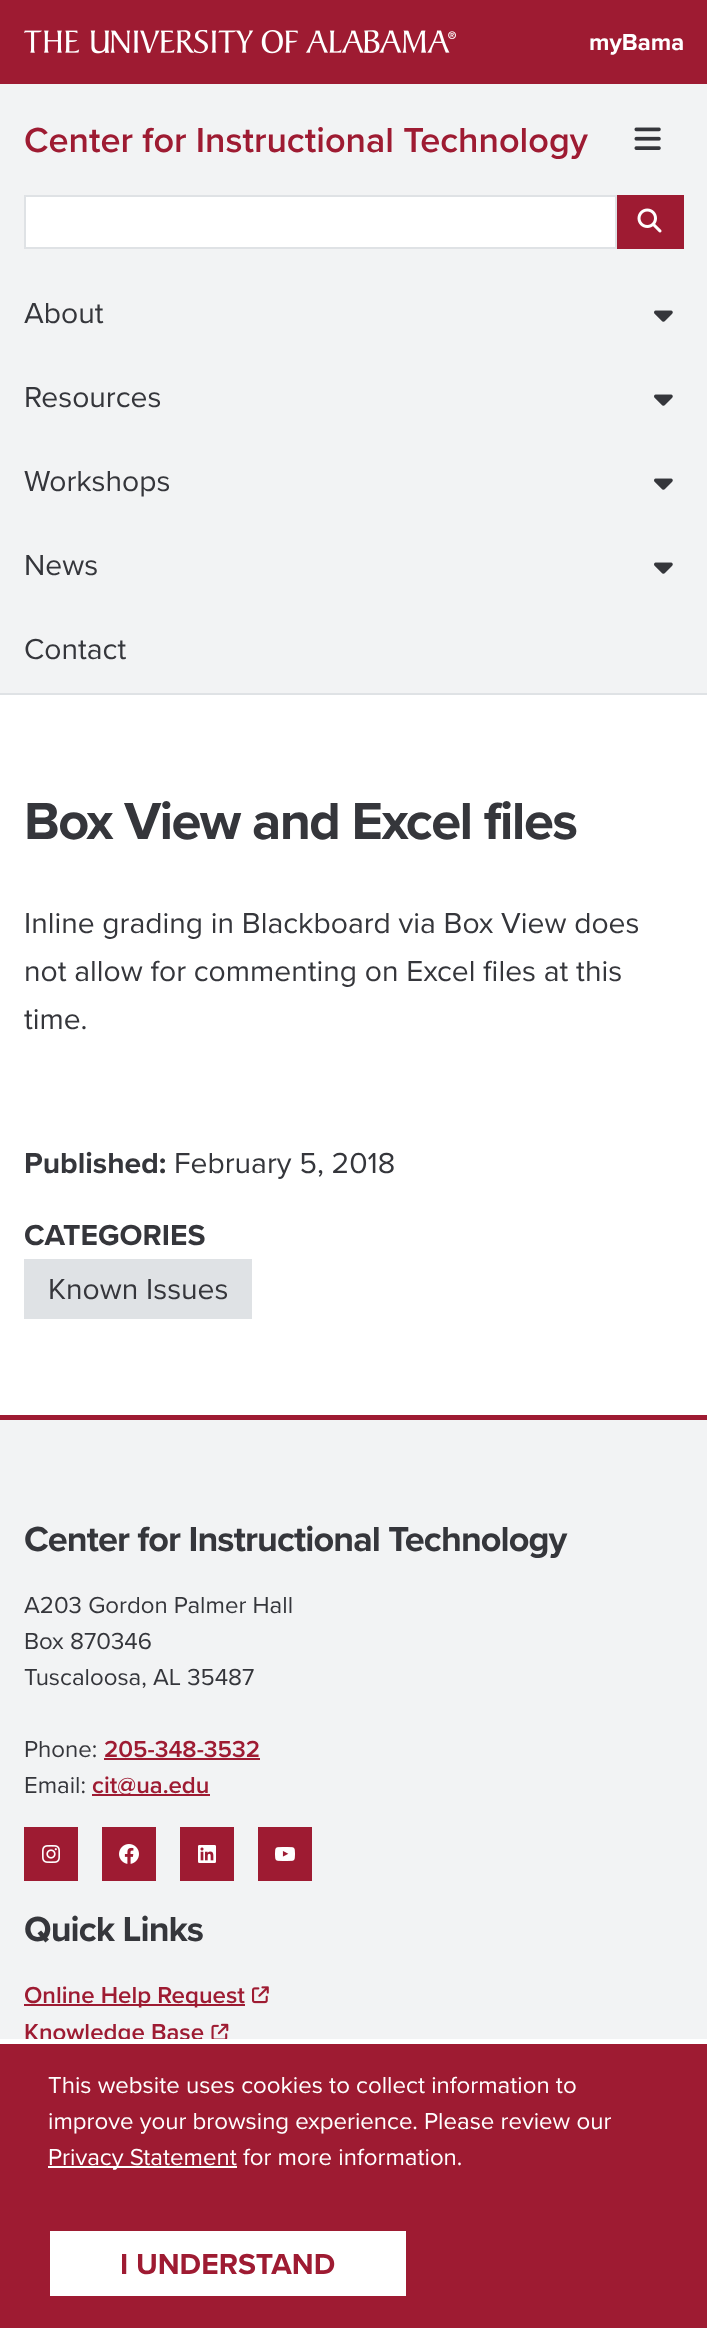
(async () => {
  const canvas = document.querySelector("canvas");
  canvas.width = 707;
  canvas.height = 2328;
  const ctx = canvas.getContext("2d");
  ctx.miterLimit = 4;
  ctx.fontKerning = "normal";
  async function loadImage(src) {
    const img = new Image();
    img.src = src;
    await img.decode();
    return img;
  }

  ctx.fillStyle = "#ffffff";
  ctx.fillRect(0, 0, 707, 2328);
  ctx.fillStyle = "#9e1b32";
  ctx.fillRect(0, 0, 707, 84);
  ctx.drawImage(await loadImage("img/1.png"), 24, 30, 432, 24);
  ctx.fillStyle = "#f2f3f4";
  ctx.fillRect(0, 84, 707, 609);
  ctx.fillStyle = "#dfe2e5";
  ctx.fillRect(0, 693, 707, 2);
  ctx.drawImage(await loadImage("img/2.png"), 634, 127, 27, 23);
  ctx.fillStyle = "#ffffff";
  ctx.beginPath();
  ctx.rect(25, 196, 591, 52);
  ctx.fill();
  ctx.strokeStyle = "#dfe2e5";
  ctx.lineWidth = 2;
  ctx.stroke();
  ctx.fillStyle = "#9e1b32";
  ctx.fillRect(617, 195, 67, 54);
  ctx.drawImage(await loadImage("img/3.png"), 637, 208, 25, 25);
  ctx.drawImage(await loadImage("img/4.png"), 654, 310, 19, 12);
  ctx.drawImage(await loadImage("img/4.png"), 654, 394, 19, 12);
  ctx.drawImage(await loadImage("img/4.png"), 654, 478, 19, 12);
  ctx.drawImage(await loadImage("img/4.png"), 654, 562, 19, 12);
  for (const [x, y, w, h, color] of [
    [24, 1259, 228, 60, "#dfe2e5"],
    [0, 1420, 707, 619, "#f2f3f4"],
    [0, 1415, 707, 5, "#9e1b32"],
    [104, 1758, 156, 2, "#9e1b32"],
    [92, 1794, 118, 2, "#9e1b32"],
    [24, 1827, 54, 54, "#9e1b32"],
  ]) {
    ctx.fillStyle = color;
    ctx.fillRect(x, y, w, h);
  }
  ctx.drawImage(await loadImage("img/5.png"), 42, 1845, 18, 18);
  ctx.fillRect(102, 1827, 54, 54);
  ctx.drawImage(await loadImage("img/6.png"), 119, 1844, 20, 20);
  ctx.fillRect(180, 1827, 54, 54);
  ctx.drawImage(await loadImage("img/7.png"), 198, 1845, 18, 18);
  ctx.fillRect(258, 1827, 54, 54);
  ctx.drawImage(await loadImage("img/8.png"), 275, 1847, 20, 14);
  ctx.fillRect(24, 2004, 221, 2);
  ctx.drawImage(await loadImage("img/9.png"), 252, 1986, 17, 18);
  ctx.drawImage(await loadImage("img/10.png"), 211, 2023, 18, 16);
  for (const [x, y, w, h, color] of [
    [0, 2044, 707, 284, "#9e1b32"],
    [48, 2166, 189, 2, "#ffffff"],
    [50, 2231, 356, 65, "#ffffff"],
  ]) {
    ctx.fillStyle = color;
    ctx.fillRect(x, y, w, h);
  }
  ctx.font = "bold 24px Proxima Nova";
  ctx.fillText("myBama", 589, 50);
  ctx.font = "600 36px Proxima Nova";
  ctx.fillStyle = "#9e1b32";
  ctx.fillText("Center for Instructional Technology", 24, 152);
  ctx.font = "30px Proxima Nova";
  ctx.fillStyle = "#35363b";
  for (const [text, x, y] of [
    ["About", 24, 323],
    ["Resources", 24, 407],
    ["Workshops", 24, 491],
    ["News", 24, 575],
    ["Contact", 24, 659],
  ]) {
    ctx.fillText(text, x, y);
  }
  ctx.letterSpacing = "-1.6px";
  ctx.font = "bold 54px Proxima Nova";
  ctx.fillText("Box View and Excel files", 24, 839);
  ctx.letterSpacing = "0px";
  ctx.font = "30px Proxima Nova";
  for (const [text, x, y] of [
    ["Inline grading in Blackboard via Box View does", 24, 933],
    ["not allow for commenting on Excel files at this", 24, 981],
    ["time.", 24, 1029],
  ]) {
    ctx.fillText(text, x, y);
  }
  ctx.font = "bold 30px Proxima Nova";
  ctx.fillText("Published:", 24, 1173);
  ctx.font = "30px Proxima Nova";
  ctx.fillText("February 5, 2018", 174, 1173);
  ctx.font = "bold 30px Proxima Nova";
  ctx.fillText("CATEGORIES", 24, 1245);
  ctx.font = "30px Proxima Nova";
  ctx.fillText("Known Issues", 48, 1299);
  ctx.letterSpacing = "-0.9px";
  ctx.font = "bold 36px Proxima Nova";
  ctx.fillText("Center for Instructional Technology", 24, 1551);
  ctx.letterSpacing = "0px";
  ctx.font = "24px Proxima Nova";
  for (const [text, x, y] of [
    ["A203 Gordon Palmer Hall", 24, 1613],
    ["Box 870346", 24, 1649],
    ["Tuscaloosa, AL 35487", 24, 1685],
    ["Phone:", 24, 1757],
  ]) {
    ctx.fillText(text, x, y);
  }
  ctx.font = "600 24px Proxima Nova";
  ctx.fillStyle = "#9e1b32";
  ctx.fillText("205-348-3532", 104, 1757);
  ctx.font = "24px Proxima Nova";
  ctx.fillStyle = "#35363b";
  ctx.fillText("Email:", 24, 1793);
  ctx.font = "600 24px Proxima Nova";
  ctx.fillStyle = "#9e1b32";
  ctx.fillText("cit@ua.edu", 92, 1793);
  ctx.letterSpacing = "-0.9px";
  ctx.font = "bold 36px Proxima Nova";
  ctx.fillStyle = "#35363b";
  ctx.fillText("Quick Links", 24, 1941);
  ctx.letterSpacing = "0px";
  ctx.font = "600 24px Proxima Nova";
  ctx.fillStyle = "#9e1b32";
  ctx.fillText("Online Help Request", 24, 2003);
  ctx.fillText("Knowledge Base", 24, 2040);
  ctx.fillStyle = "#ffffff";
  ctx.fillRect(25, 2039, 177, 5);
  ctx.font = "24px Proxima Nova";
  for (const [text, x, y] of [
    ["This website uses cookies to collect information to", 48, 2093],
    ["improve your browsing experience. Please review our", 48, 2129],
    ["Privacy Statement for more information.", 48, 2165],
  ]) {
    ctx.fillText(text, x, y);
  }
  ctx.font = "bold 30px Proxima Nova";
  ctx.fillStyle = "#9e1b32";
  ctx.fillText("I UNDERSTAND", 120, 2274);
})();
